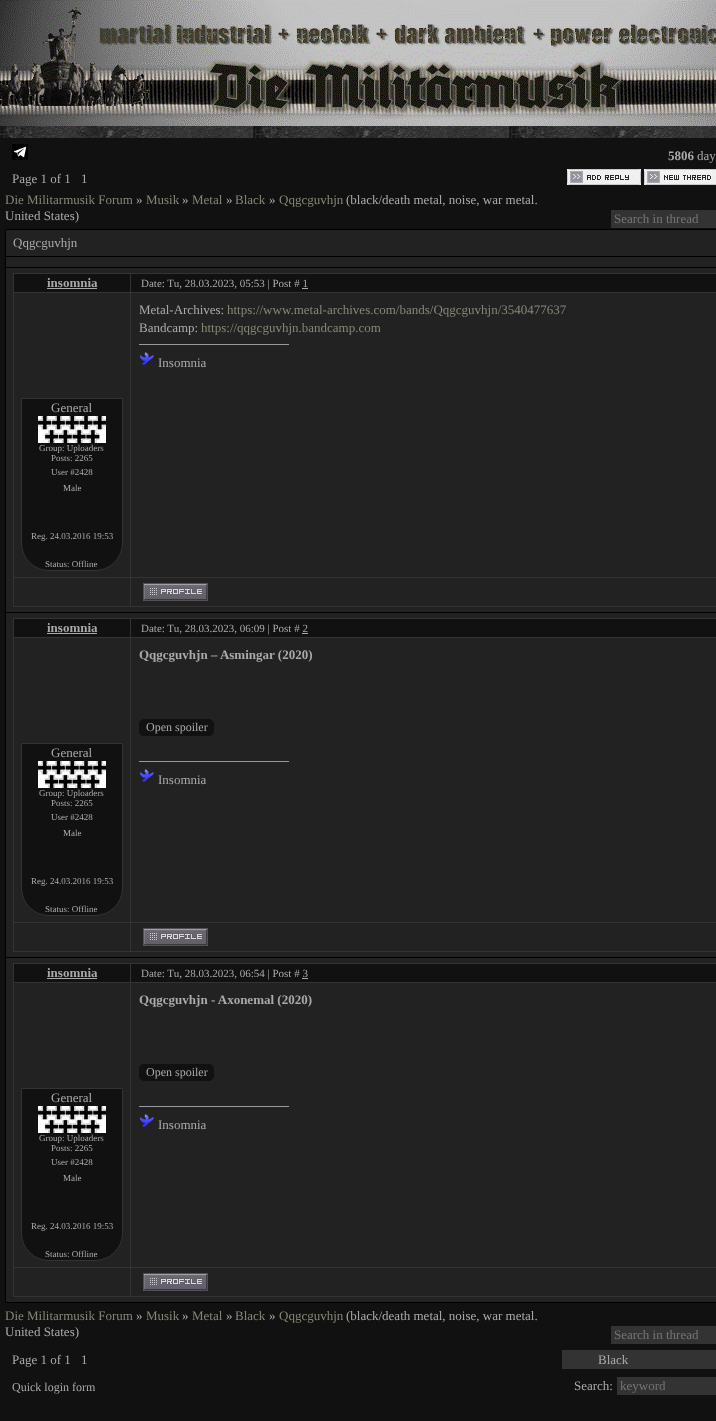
(async () => {
  const canvas = document.querySelector("canvas");
  canvas.width = 716;
  canvas.height = 1421;
  const ctx = canvas.getContext("2d");
  ctx.miterLimit = 4;
  ctx.fontKerning = "normal";
  async function loadImage(src) {
    const img = new Image();
    img.src = src;
    await img.decode();
    return img;
  }

  ctx.fillStyle = "#ffffff";
  ctx.fillRect(0, 0, 716, 1421);
  ctx.drawImage(await loadImage("img/1.png"), 0, 126, 716, 12);
  ctx.drawImage(await loadImage("img/2.png"), 0, 0, 716, 126);
  ctx.fillStyle = "#111111";
  ctx.fillRect(0, 138, 716, 1283);
  ctx.drawImage(await loadImage("img/3.png"), 12, 144, 16, 16);
  ctx.drawImage(await loadImage("img/4.png"), 567, 169, 74, 16);
  ctx.drawImage(await loadImage("img/5.png"), 644, 169, 72, 16);
  ctx.fillStyle = "#333333";
  ctx.fillRect(611, 210, 105, 18);
  ctx.fillStyle = "#000000";
  ctx.beginPath();
  ctx.roundRect(5, 229, 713, 1074, 2);
  ctx.fill();
  for (const [x, y, w, h, color] of [
    [6, 230, 710, 26, "#222222"],
    [6, 257, 710, 10, "#222222"],
    [6, 268, 710, 344, "#222222"],
    [13, 273, 703, 334, "#333333"],
    [14, 274, 116, 18, "#111111"],
    [47, 288, 50, 1, "#aaaaaa"],
    [131, 274, 585, 18, "#111111"],
    [302, 288, 6, 1, "#aaaaaa"],
    [131, 293, 585, 284, "#222222"],
    [139, 344, 150, 1, "#999999"],
  ]) {
    ctx.fillStyle = color;
    ctx.fillRect(x, y, w, h);
  }
  ctx.drawImage(await loadImage("img/6.png"), 140, 352, 14, 13);
  ctx.fillStyle = "#222222";
  ctx.fillRect(14, 293, 116, 284);
  ctx.fillStyle = "#111111";
  ctx.beginPath();
  ctx.roundRect(21.5, 398.5, 101, 172, [0, 0, 27.5, 27.5]);
  ctx.fill();
  ctx.strokeStyle = "#333333";
  ctx.stroke();
  ctx.drawImage(await loadImage("img/7.png"), 38, 416, 68, 27);
  ctx.fillStyle = "#222222";
  ctx.fillRect(14, 578, 116, 28);
  ctx.fillRect(131, 578, 585, 28);
  ctx.drawImage(await loadImage("img/8.png"), 143, 583, 65, 18);
  for (const [x, y, w, h, color] of [
    [6, 613, 710, 344, "#222222"],
    [13, 618, 703, 334, "#333333"],
    [14, 619, 116, 18, "#111111"],
    [47, 633, 50, 1, "#aaaaaa"],
    [131, 619, 585, 18, "#111111"],
    [302, 633, 6, 1, "#aaaaaa"],
    [131, 638, 585, 284, "#222222"],
  ]) {
    ctx.fillStyle = color;
    ctx.fillRect(x, y, w, h);
  }
  ctx.fillStyle = "#111111";
  ctx.beginPath();
  ctx.roundRect(139.5, 719.5, 74, 16, 4.5);
  ctx.fill();
  ctx.strokeStyle = "#111111";
  ctx.stroke();
  ctx.fillStyle = "#999999";
  ctx.fillRect(139, 761, 150, 1);
  ctx.drawImage(await loadImage("img/6.png"), 140, 769, 14, 13);
  ctx.fillStyle = "#222222";
  ctx.fillRect(14, 638, 116, 284);
  ctx.fillStyle = "#111111";
  ctx.beginPath();
  ctx.roundRect(21.5, 743.5, 101, 172, [0, 0, 27.5, 27.5]);
  ctx.fill();
  ctx.strokeStyle = "#333333";
  ctx.stroke();
  ctx.drawImage(await loadImage("img/7.png"), 38, 761, 68, 27);
  ctx.fillStyle = "#222222";
  ctx.fillRect(14, 923, 116, 28);
  ctx.fillRect(131, 923, 585, 28);
  ctx.drawImage(await loadImage("img/8.png"), 143, 928, 65, 18);
  for (const [x, y, w, h, color] of [
    [6, 958, 710, 344, "#222222"],
    [13, 963, 703, 334, "#333333"],
    [14, 964, 116, 18, "#111111"],
    [47, 978, 50, 1, "#aaaaaa"],
    [131, 964, 585, 18, "#111111"],
    [302, 978, 6, 1, "#aaaaaa"],
    [131, 983, 585, 284, "#222222"],
  ]) {
    ctx.fillStyle = color;
    ctx.fillRect(x, y, w, h);
  }
  ctx.fillStyle = "#111111";
  ctx.beginPath();
  ctx.roundRect(139.5, 1064.5, 74, 16, 4.5);
  ctx.fill();
  ctx.strokeStyle = "#111111";
  ctx.stroke();
  ctx.fillStyle = "#999999";
  ctx.fillRect(139, 1106, 150, 1);
  ctx.drawImage(await loadImage("img/6.png"), 140, 1114, 14, 13);
  ctx.fillStyle = "#222222";
  ctx.fillRect(14, 983, 116, 284);
  ctx.fillStyle = "#111111";
  ctx.beginPath();
  ctx.roundRect(21.5, 1088.5, 101, 172, [0, 0, 27.5, 27.5]);
  ctx.fill();
  ctx.strokeStyle = "#333333";
  ctx.stroke();
  ctx.drawImage(await loadImage("img/7.png"), 38, 1106, 68, 27);
  ctx.fillStyle = "#222222";
  ctx.fillRect(14, 1268, 116, 28);
  ctx.fillRect(131, 1268, 585, 28);
  ctx.drawImage(await loadImage("img/8.png"), 143, 1273, 65, 18);
  for (const [x, y, w, h, color] of [
    [611, 1326, 105, 18, "#333333"],
    [562, 1350, 154, 19, "#333333"],
    [617, 1377, 99, 18, "#333333"],
  ]) {
    ctx.fillStyle = color;
    ctx.fillRect(x, y, w, h);
  }
  ctx.font = "bold 13px Liberation Serif";
  ctx.fillStyle = "#aaaaaa";
  ctx.fillText("5806", 668, 160);
  ctx.font = "13px Liberation Serif";
  for (const [text, x, y] of [
    ["day", 697, 160],
    ["Page 1 of 1", 12, 183],
    ["1", 81, 183],
  ]) {
    ctx.fillText(text, x, y);
  }
  ctx.fillStyle = "#878676";
  ctx.fillText("Die Militarmusik Forum", 5, 204);
  ctx.fillStyle = "#aaaaaa";
  ctx.fillText("»", 136, 204);
  ctx.fillStyle = "#878676";
  ctx.fillText("Musik", 146, 204);
  ctx.fillStyle = "#aaaaaa";
  ctx.fillText("»", 182, 204);
  ctx.fillStyle = "#878676";
  ctx.fillText("Metal", 192, 204);
  ctx.fillStyle = "#aaaaaa";
  ctx.fillText("»", 226, 204);
  ctx.fillStyle = "#878676";
  ctx.fillText("Black", 235, 204);
  ctx.fillStyle = "#aaaaaa";
  ctx.fillText("»", 269, 204);
  ctx.fillStyle = "#878676";
  ctx.fillText("Qqgcguvhjn", 279, 204);
  ctx.fillStyle = "#aaaaaa";
  ctx.fillText("(black/death metal, noise, war metal.", 346, 204);
  ctx.fillText("United States)", 5, 220);
  ctx.fillStyle = "#757575";
  ctx.fillText("Search in thread", 614, 223);
  ctx.fillStyle = "#aaaaaa";
  ctx.fillText("Qqgcguvhjn", 13, 247);
  ctx.font = "bold 13px Liberation Serif";
  ctx.fillText("insomnia", 47, 287);
  ctx.font = "11px Liberation Serif";
  ctx.fillText("Date: Tu, 28.03.2023, 05:53 | Post # 1", 141, 287);
  ctx.font = "13px Liberation Serif";
  ctx.fillText("Metal-Archives:", 139, 314);
  ctx.fillStyle = "#878676";
  ctx.fillText("https://www.metal-archives.com/bands/Qqgcguvhjn/3540477637", 227, 314);
  ctx.fillStyle = "#aaaaaa";
  ctx.fillText("Bandcamp:", 139, 332);
  ctx.fillStyle = "#878676";
  ctx.fillText("https://qqgcguvhjn.bandcamp.com", 201, 332);
  ctx.fillStyle = "#aaaaaa";
  ctx.fillText("Insomnia", 158, 367);
  ctx.fillText("General", 51, 412);
  ctx.font = "9px Liberation Serif";
  for (const [text, x, y] of [
    ["Group: Uploaders", 39, 451],
    ["Posts: 2265", 51, 461],
    ["User #2428", 51, 475],
    ["Male", 63, 491],
    ["Reg. 24.03.2016 19:53", 31, 539],
    ["Status: Offline", 45, 567],
  ]) {
    ctx.fillText(text, x, y);
  }
  ctx.font = "bold 13px Liberation Serif";
  ctx.fillText("insomnia", 47, 632);
  ctx.font = "11px Liberation Serif";
  ctx.fillText("Date: Tu, 28.03.2023, 06:09 | Post # 2", 141, 632);
  ctx.font = "bold 13px Liberation Serif";
  ctx.fillText("Qqgcguvhjn – Asmingar (2020)", 139, 659);
  ctx.font = "12px Liberation Serif";
  ctx.fillText("Open spoiler", 146, 731);
  ctx.font = "13px Liberation Serif";
  ctx.fillText("Insomnia", 158, 784);
  ctx.fillText("General", 51, 757);
  ctx.font = "9px Liberation Serif";
  for (const [text, x, y] of [
    ["Group: Uploaders", 39, 796],
    ["Posts: 2265", 51, 806],
    ["User #2428", 51, 820],
    ["Male", 63, 836],
    ["Reg. 24.03.2016 19:53", 31, 884],
    ["Status: Offline", 45, 912],
  ]) {
    ctx.fillText(text, x, y);
  }
  ctx.font = "bold 13px Liberation Serif";
  ctx.fillText("insomnia", 47, 977);
  ctx.font = "11px Liberation Serif";
  ctx.fillText("Date: Tu, 28.03.2023, 06:54 | Post # 3", 141, 977);
  ctx.font = "bold 13px Liberation Serif";
  ctx.fillText("Qqgcguvhjn - Axonemal (2020)", 139, 1004);
  ctx.font = "12px Liberation Serif";
  ctx.fillText("Open spoiler", 146, 1076);
  ctx.font = "13px Liberation Serif";
  ctx.fillText("Insomnia", 158, 1129);
  ctx.fillText("General", 51, 1102);
  ctx.font = "9px Liberation Serif";
  for (const [text, x, y] of [
    ["Group: Uploaders", 39, 1141],
    ["Posts: 2265", 51, 1151],
    ["User #2428", 51, 1165],
    ["Male", 63, 1181],
    ["Reg. 24.03.2016 19:53", 31, 1229],
    ["Status: Offline", 45, 1257],
  ]) {
    ctx.fillText(text, x, y);
  }
  ctx.font = "13px Liberation Serif";
  ctx.fillStyle = "#878676";
  ctx.fillText("Die Militarmusik Forum", 5, 1320);
  ctx.fillStyle = "#aaaaaa";
  ctx.fillText("»", 136, 1320);
  ctx.fillStyle = "#878676";
  ctx.fillText("Musik", 146, 1320);
  ctx.fillStyle = "#aaaaaa";
  ctx.fillText("»", 182, 1320);
  ctx.fillStyle = "#878676";
  ctx.fillText("Metal", 192, 1320);
  ctx.fillStyle = "#aaaaaa";
  ctx.fillText("»", 226, 1320);
  ctx.fillStyle = "#878676";
  ctx.fillText("Black", 235, 1320);
  ctx.fillStyle = "#aaaaaa";
  ctx.fillText("»", 269, 1320);
  ctx.fillStyle = "#878676";
  ctx.fillText("Qqgcguvhjn", 279, 1320);
  ctx.fillStyle = "#aaaaaa";
  ctx.fillText("(black/death metal, noise, war metal.", 346, 1320);
  ctx.fillText("United States)", 5, 1336);
  ctx.fillStyle = "#757575";
  ctx.fillText("Search in thread", 614, 1339);
  ctx.fillStyle = "#aaaaaa";
  for (const [text, x, y] of [
    ["Page 1 of 1", 12, 1364],
    ["1", 81, 1364],
    ["Black", 598, 1364],
  ]) {
    ctx.fillText(text, x, y);
  }
  ctx.font = "12px Liberation Serif";
  ctx.fillText("Quick login form", 12, 1391);
  ctx.font = "13px Liberation Serif";
  ctx.fillText("Search:", 574, 1390);
  ctx.fillStyle = "#757575";
  ctx.fillText("keyword", 620, 1390);
})();
